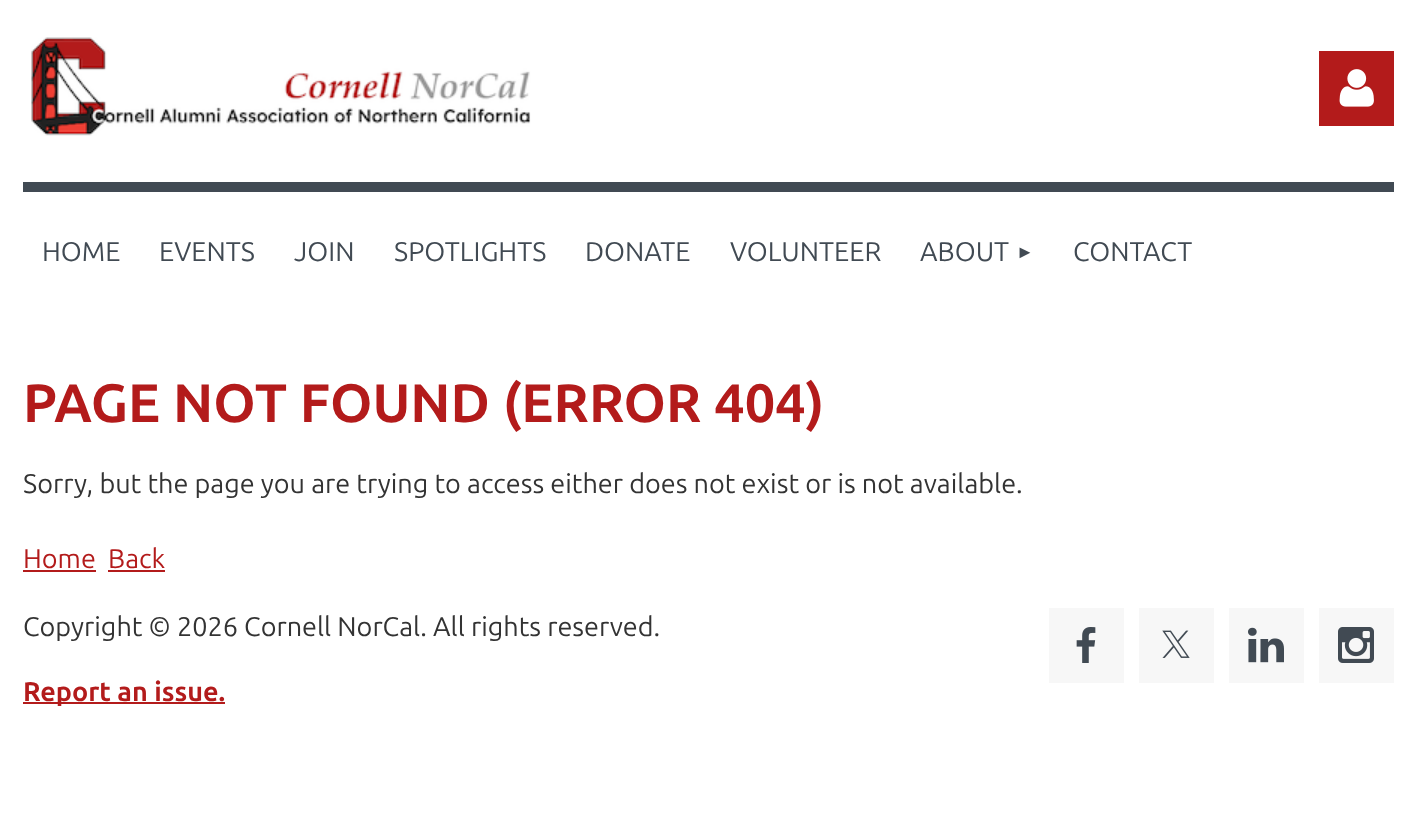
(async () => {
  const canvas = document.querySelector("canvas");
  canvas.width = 1415;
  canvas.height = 820;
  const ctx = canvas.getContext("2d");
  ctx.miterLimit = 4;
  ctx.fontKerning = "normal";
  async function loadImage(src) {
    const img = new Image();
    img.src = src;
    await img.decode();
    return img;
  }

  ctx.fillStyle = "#ffffff";
  ctx.fillRect(0, 0, 1415, 820);
  ctx.drawImage(await loadImage("img/1.png"), 31, 37, 500, 99);
  ctx.fillStyle = "#b31b1b";
  ctx.fillRect(1319, 51, 75, 75);
  ctx.drawImage(await loadImage("img/2.png"), 1339, 69, 35, 38);
  for (const [x, y, w, h, color] of [
    [23, 182, 1371, 10, "#414a53"],
    [23, 570, 73, 2, "#b31b1b"],
    [108, 570, 57, 2, "#b31b1b"],
    [23, 702, 202, 2, "#b31b1b"],
    [1049, 608, 75, 75, "#f7f7f7"],
  ]) {
    ctx.fillStyle = color;
    ctx.fillRect(x, y, w, h);
  }
  ctx.drawImage(await loadImage("img/3.png"), 1076, 627, 20, 36);
  ctx.fillRect(1139, 608, 75, 75);
  ctx.drawImage(await loadImage("img/4.png"), 1162, 630, 28, 28);
  ctx.fillRect(1229, 608, 75, 75);
  ctx.drawImage(await loadImage("img/5.png"), 1248, 627, 36, 36);
  ctx.fillRect(1319, 608, 75, 75);
  ctx.drawImage(await loadImage("img/6.png"), 1338, 627, 36, 36);
  ctx.font = "27px Ubuntu";
  ctx.fillStyle = "#414a53";
  for (const [text, x, y] of [
    ["HOME", 42, 261],
    ["EVENTS", 159, 261],
    ["JOIN", 294, 261],
    ["SPOTLIGHTS", 394, 261],
    ["DONATE", 585, 261],
    ["VOLUNTEER", 730, 261],
    ["ABOUT", 920, 261],
  ]) {
    ctx.fillText(text, x, y);
  }
  ctx.font = "18px Liberation Sans";
  ctx.fillText("►", 1016, 258);
  ctx.font = "27px Ubuntu";
  ctx.fillText("CONTACT", 1073, 261);
  ctx.font = "bold 54px Ubuntu";
  ctx.fillStyle = "#b31b1b";
  ctx.fillText("PAGE NOT FOUND (ERROR 404)", 23, 422);
  ctx.font = "27px Ubuntu";
  ctx.fillStyle = "#333333";
  ctx.fillText("Sorry, but the page you are trying to access either does not exist or is not available.", 23, 493);
  ctx.fillStyle = "#b31b1b";
  ctx.fillText("Home", 23, 568);
  ctx.fillText("Back", 108, 568);
  ctx.fillStyle = "#333333";
  ctx.fillText("Copyright © 2026 Cornell NorCal. All rights reserved.", 23, 636);
  ctx.font = "bold 27px Ubuntu";
  ctx.fillStyle = "#b31b1b";
  ctx.fillText("Report an issue.", 23, 701);
})();
